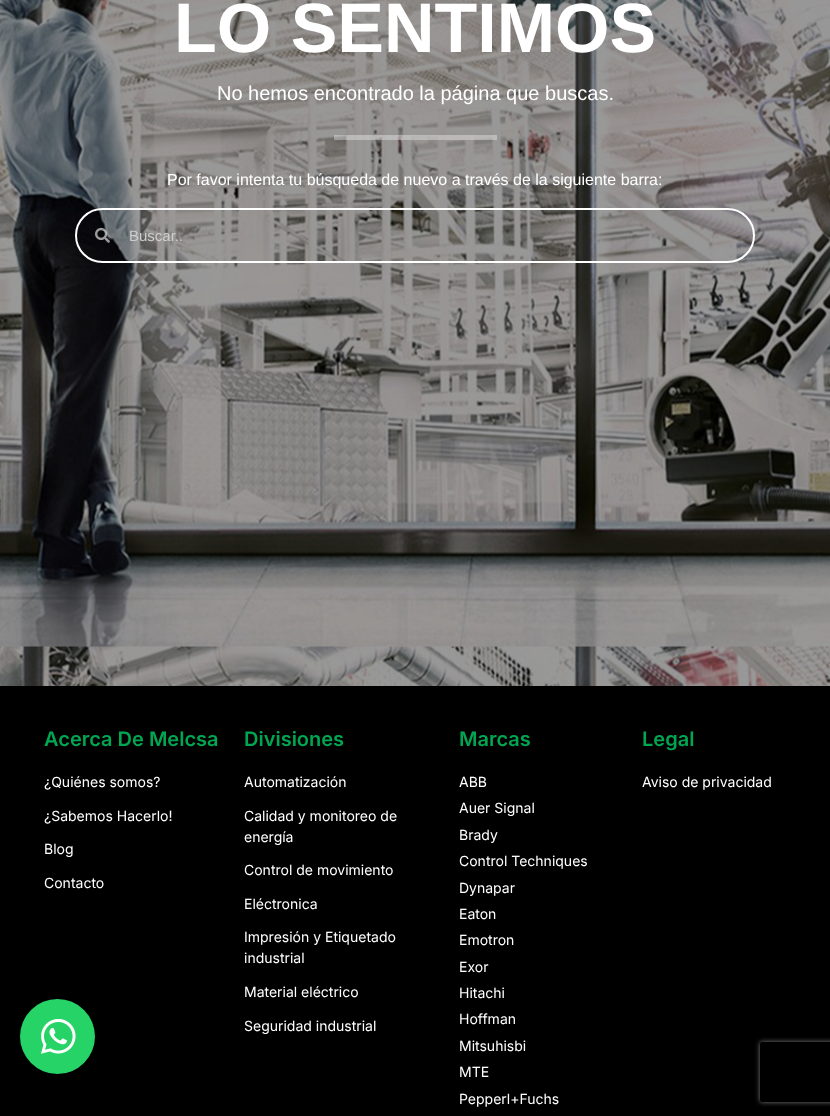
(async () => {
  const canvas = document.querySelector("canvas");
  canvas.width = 830;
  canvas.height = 1116;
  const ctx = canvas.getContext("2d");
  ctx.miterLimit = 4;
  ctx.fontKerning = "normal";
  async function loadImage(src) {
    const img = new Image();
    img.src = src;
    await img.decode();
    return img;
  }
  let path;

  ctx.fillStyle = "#ffffff";
  ctx.fillRect(0, 0, 830, 1116);
  ctx.drawImage(await loadImage("img/1.png"), 0, 0, 830, 686);
  ctx.fillStyle = "rgba(255, 255, 255, 0.35)";
  ctx.fillRect(334, 135, 163, 5);
  ctx.beginPath();
  ctx.roundRect(76, 209, 678, 53, 26.5);
  ctx.strokeStyle = "#ffffff";
  ctx.lineWidth = 2;
  ctx.stroke();
  ctx.drawImage(await loadImage("img/2.png"), 95, 227, 15, 16);
  ctx.fillStyle = "#000000";
  ctx.fillRect(0, 686, 830, 430);
  ctx.fillStyle = "#25d366";
  ctx.beginPath();
  ctx.arc(57.5, 1036.5, 37.5, 0, Math.PI * 2);
  ctx.fill();
  ctx.drawImage(await loadImage("img/3.png"), 41, 1018, 35, 36);
  ctx.save();
  path = new Path2D("M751 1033H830V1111H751ZM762 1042H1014C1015 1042 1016 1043 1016 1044V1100C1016 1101 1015 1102 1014 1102H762C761 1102 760 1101 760 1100V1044C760 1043 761 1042 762 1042Z");
  ctx.clip(path, "evenodd");
  ctx.fillStyle = "#808080";
  ctx.filter = "blur(2.5px)";
  ctx.beginPath();
  ctx.roundRect(760, 1042, 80, 60, 2);
  ctx.fill();
  ctx.filter = "none";
  ctx.restore();
  ctx.font = "bold 70px Liberation Sans";
  ctx.fillStyle = "#ffffff";
  ctx.fillText("LO SENTIMOS", 174, 52);
  ctx.font = "20px Liberation Sans";
  ctx.fillText("No hemos encontrado la página que buscas.", 217, 100);
  ctx.font = "16px Liberation Sans";
  ctx.fillText("Por favor intenta tu búsqueda de nuevo a través de la siguiente barra:", 167, 185);
  ctx.font = "15px Liberation Sans";
  ctx.fillStyle = "#cecece";
  ctx.fillText("Buscar..", 129, 241);
  ctx.font = "600 20px Inter";
  ctx.fillStyle = "#01a652";
  ctx.fillText("Acerca De Melcsa", 44, 746);
  ctx.font = "14px Inter";
  ctx.fillStyle = "#ffffff";
  for (const [text, x, y] of [
    ["¿Quiénes somos?", 44, 787],
    ["¿Sabemos Hacerlo!", 44, 821],
    ["Blog", 44, 854],
    ["Contacto", 44, 888],
  ]) {
    ctx.fillText(text, x, y);
  }
  ctx.font = "600 20px Inter";
  ctx.fillStyle = "#01a652";
  ctx.fillText("Divisiones", 244, 746);
  ctx.font = "14px Inter";
  ctx.fillStyle = "#ffffff";
  for (const [text, x, y] of [
    ["Automatización", 244, 787],
    ["Calidad y monitoreo de", 244, 821],
    ["energía", 244, 842],
    ["Control de movimiento", 244, 875],
    ["Eléctronica", 244, 909],
    ["Impresión y Etiquetado", 244, 942],
    ["industrial", 244, 963],
    ["Material eléctrico", 244, 997],
    ["Seguridad industrial", 244, 1031],
  ]) {
    ctx.fillText(text, x, y);
  }
  ctx.font = "600 20px Inter";
  ctx.fillStyle = "#01a652";
  ctx.fillText("Marcas", 459, 746);
  ctx.font = "14px Inter";
  ctx.fillStyle = "#ffffff";
  for (const [text, x, y] of [
    ["ABB", 459, 787],
    ["Auer Signal", 459, 813],
    ["Brady", 459, 840],
    ["Control Techniques", 459, 866],
    ["Dynapar", 459, 893],
    ["Eaton", 459, 919],
    ["Emotron", 459, 945],
    ["Exor", 459, 972],
    ["Hitachi", 459, 998],
    ["Hoffman", 459, 1024],
    ["Mitsuhisbi", 459, 1051],
    ["MTE", 459, 1077],
    ["Pepperl+Fuchs", 459, 1104],
  ]) {
    ctx.fillText(text, x, y);
  }
  ctx.font = "600 20px Inter";
  ctx.fillStyle = "#01a652";
  ctx.fillText("Legal", 642, 746);
  ctx.font = "14px Inter";
  ctx.fillStyle = "#ffffff";
  ctx.fillText("Aviso de privacidad", 642, 787);
})();
